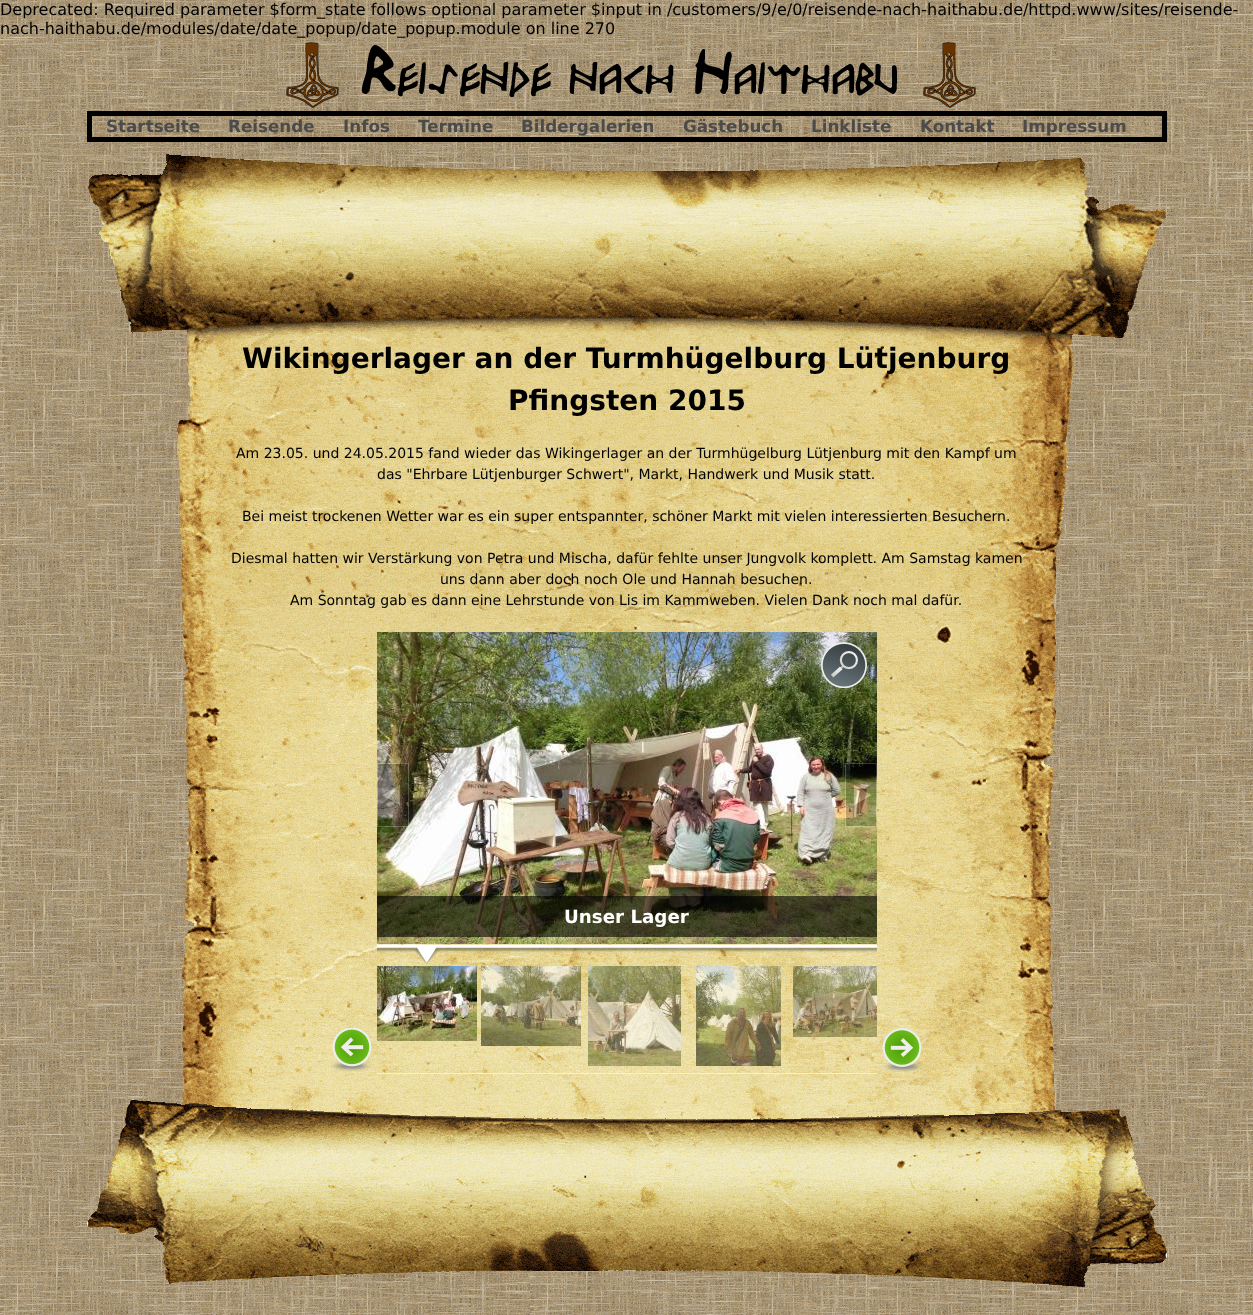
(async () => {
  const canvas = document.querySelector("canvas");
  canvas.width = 1253;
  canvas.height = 1315;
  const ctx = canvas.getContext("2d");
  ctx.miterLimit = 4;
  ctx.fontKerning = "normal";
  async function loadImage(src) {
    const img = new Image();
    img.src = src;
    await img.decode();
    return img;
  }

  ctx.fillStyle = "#ffffff";
  ctx.fillRect(0, 0, 1253, 1315);
  ctx.drawImage(await loadImage("img/1.png"), 0, 0, 1253, 1315);
  ctx.drawImage(await loadImage("img/2.png"), 286, 42, 690, 66);
  ctx.strokeStyle = "#000000";
  ctx.lineWidth = 5;
  ctx.strokeRect(89.5, 113.5, 1075, 26);
  ctx.drawImage(await loadImage("img/3.png"), 88, 154, 1078, 184);
  ctx.drawImage(await loadImage("img/4.png"), 177, 338, 896, 782);
  ctx.drawImage(await loadImage("img/7.png"), 377, 632, 500, 312);
  ctx.drawImage(await loadImage("img/5.png"), 377, 763, 32, 64);
  ctx.drawImage(await loadImage("img/6.png"), 845, 763, 32, 64);
  ctx.drawImage(await loadImage("img/8.png"), 821, 642, 46, 46);
  ctx.fillStyle = "rgba(0, 0, 0, 0.6)";
  ctx.fillRect(377, 896, 500, 41);
  ctx.drawImage(await loadImage("img/9.png"), 331, 1028, 41, 44);
  ctx.drawImage(await loadImage("img/10.png"), 377, 944, 500, 9);
  ctx.fillStyle = "#eeeeee";
  ctx.fillRect(377, 1073, 500, 1);
  ctx.drawImage(await loadImage("img/11.png"), 414, 947, 26, 17);
  ctx.drawImage(await loadImage("img/12.png"), 377, 966, 100, 75);
  ctx.drawImage(await loadImage("img/13.png"), 481, 966, 100, 80);
  ctx.drawImage(await loadImage("img/14.png"), 588, 966, 93, 100);
  ctx.drawImage(await loadImage("img/15.png"), 696, 966, 85, 100);
  ctx.drawImage(await loadImage("img/16.png"), 793, 966, 84, 71);
  ctx.drawImage(await loadImage("img/17.png"), 882, 1028, 41, 44);
  ctx.drawImage(await loadImage("img/18.png"), 87, 1099, 1080, 188);
  ctx.font = "16px DejaVu Sans";
  ctx.fillStyle = "#000000";
  ctx.fillText("Deprecated: Required parameter $form_state follows optional parameter $input in /customers/9/e/0/reisende-nach-haithabu.de/httpd.www/sites/reisende-", 0, 15);
  ctx.fillText("nach-haithabu.de/modules/date/date_popup/date_popup.module on line 270", 0, 34);
  ctx.font = "bold 16.75px DejaVu Sans";
  ctx.fillStyle = "#4b4b4b";
  for (const [text, x, y] of [
    ["Startseite", 106, 132],
    ["Reisende", 228, 132],
    ["Infos", 343, 132],
    ["Termine", 418, 132],
    ["Bildergalerien", 521, 132],
    ["Gästebuch", 683, 132],
    ["Linkliste", 811, 132],
    ["Kontakt", 920, 132],
    ["Impressum", 1022, 132],
  ]) {
    ctx.fillText(text, x, y);
  }
  ctx.font = "bold 28px DejaVu Sans";
  ctx.fillStyle = "#000000";
  ctx.fillText("Wikingerlager an der Turmhügelburg Lütjenburg", 242, 368);
  ctx.fillText("Pfingsten 2015", 508, 410);
  ctx.font = "14px DejaVu Sans";
  for (const [text, x, y] of [
    ["Am 23.05. und 24.05.2015 fand wieder das Wikingerlager an der Turmhügelburg Lütjenburg mit den Kampf um", 236, 458],
    ["das \"Ehrbare Lütjenburger Schwert\", Markt, Handwerk und Musik statt.", 377, 479],
    ["Bei meist trockenen Wetter war es ein super entspannter, schöner Markt mit vielen interessierten Besuchern.", 242, 521],
    ["Diesmal hatten wir Verstärkung von Petra und Mischa, dafür fehlte unser Jungvolk komplett. Am Samstag kamen", 231, 563],
    ["uns dann aber doch noch Ole und Hannah besuchen.", 440, 584],
    ["Am Sonntag gab es dann eine Lehrstunde von Lis im Kammweben. Vielen Dank noch mal dafür.", 290, 605],
  ]) {
    ctx.fillText(text, x, y);
  }
  ctx.font = "bold 18.25px DejaVu Sans";
  ctx.fillStyle = "#ffffff";
  ctx.fillText("Unser Lager", 564, 923);
})();
